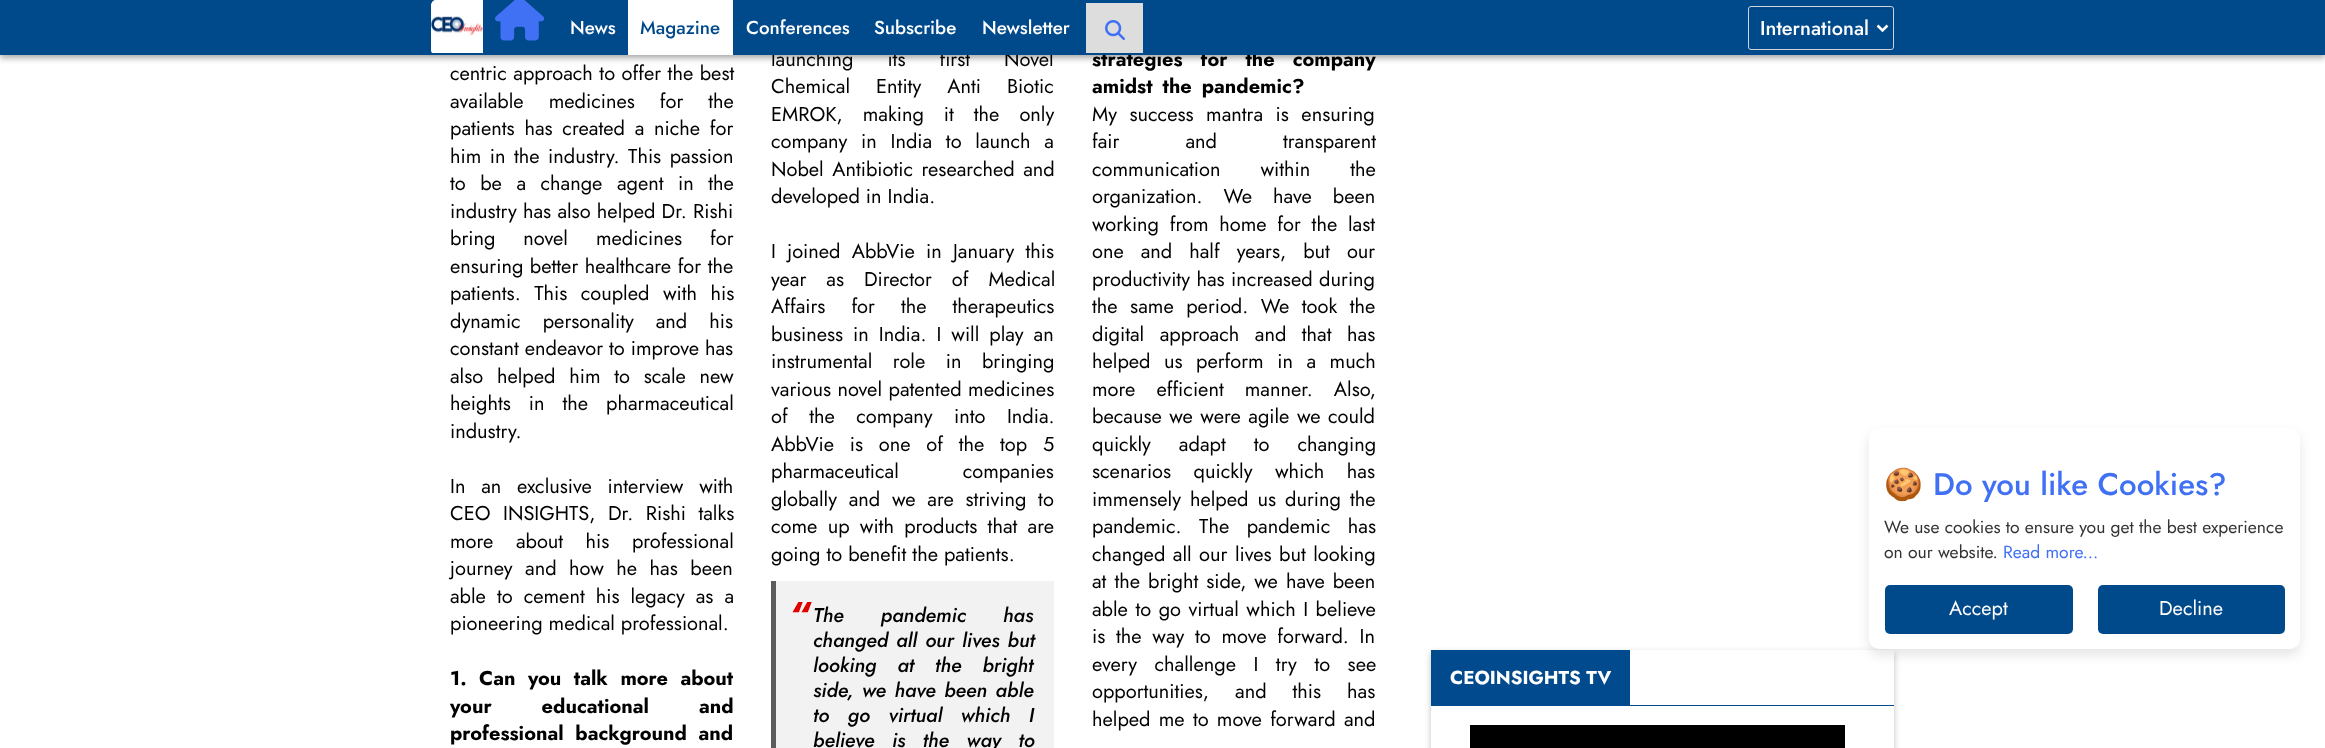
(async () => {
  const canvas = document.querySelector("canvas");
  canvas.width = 2325;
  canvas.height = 748;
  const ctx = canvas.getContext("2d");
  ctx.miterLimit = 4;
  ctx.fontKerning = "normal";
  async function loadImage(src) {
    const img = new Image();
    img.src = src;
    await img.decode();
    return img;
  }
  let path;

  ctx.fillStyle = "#ffffff";
  ctx.fillRect(0, 0, 2325, 748);
  ctx.fillStyle = "rgba(0, 0, 0, 0.35)";
  ctx.filter = "blur(3px)";
  ctx.beginPath();
  ctx.rect(0, 3, 2325, 55);
  ctx.fill();
  ctx.filter = "none";
  for (const [x, y, w, h, color] of [
    [776, 581, 278, 167, "#f2f2f2"],
    [771, 581, 5, 167, "#5c5c5c"],
    [1630, 705, 264, 1, "#004a8d"],
  ]) {
    ctx.fillStyle = color;
    ctx.fillRect(x, y, w, h);
  }
  ctx.save();
  path = new Path2D("M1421 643H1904V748H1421ZM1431 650H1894V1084H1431Z");
  ctx.clip(path, "evenodd");
  ctx.fillStyle = "rgba(0, 0, 0, 0.25)";
  ctx.filter = "blur(3px)";
  ctx.beginPath();
  ctx.rect(1431, 653, 463, 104);
  ctx.fill();
  ctx.filter = "none";
  ctx.restore();
  ctx.fillRect(1431, 650, 199, 56);
  ctx.fillStyle = "#000000";
  ctx.fillRect(1470, 725, 375, 23);
  ctx.fillStyle = "rgba(0, 0, 0, 0.1)";
  ctx.filter = "blur(6px)";
  ctx.beginPath();
  ctx.roundRect(1869, 434, 431, 221, 10);
  ctx.fill();
  ctx.filter = "none";
  ctx.fillStyle = "#ffffff";
  ctx.beginPath();
  ctx.roundRect(1869, 428, 431, 221, 10);
  ctx.fill();
  ctx.fillStyle = "#004a8c";
  ctx.beginPath();
  ctx.roundRect(1885, 585, 188, 49, 5);
  ctx.fill();
  ctx.beginPath();
  ctx.roundRect(2098, 585, 187, 49, 5);
  ctx.fill();
  ctx.wordSpacing = "0.5px";
  ctx.font = "20px Jost";
  ctx.fillStyle = "#000000";
  ctx.fillText("centric approach to offer the best", 450, 80);
  ctx.wordSpacing = "19px";
  ctx.fillText("available medicines for the", 450, 108);
  ctx.wordSpacing = "3.75px";
  ctx.fillText("patients has created a niche for", 450, 135);
  ctx.wordSpacing = "2.5px";
  ctx.fillText("him in the industry. This passion", 450, 163);
  ctx.wordSpacing = "8.5px";
  ctx.fillText("to be a change agent in the", 450, 190);
  ctx.wordSpacing = "0.25px";
  ctx.fillText("industry has also helped Dr. Rishi", 450, 218);
  ctx.wordSpacing = "22px";
  ctx.fillText("bring novel medicines for", 450, 245);
  ctx.wordSpacing = "0.5px";
  ctx.fillText("ensuring better healthcare for the", 450, 273);
  ctx.wordSpacing = "7.5px";
  ctx.fillText("patients. This coupled with his", 450, 300);
  ctx.wordSpacing = "16px";
  ctx.fillText("dynamic personality and his", 450, 328);
  ctx.wordSpacing = "0px";
  ctx.fillText("constant endeavor to improve has", 450, 355);
  ctx.wordSpacing = "7.75px";
  ctx.fillText("also helped him to scale new", 450, 383);
  ctx.wordSpacing = "12px";
  ctx.fillText("heights in the pharmaceutical", 450, 410);
  ctx.wordSpacing = "0px";
  ctx.fillText("industry.", 450, 438);
  ctx.wordSpacing = "9.75px";
  ctx.fillText("In an exclusive interview with", 450, 493);
  ctx.wordSpacing = "6.5px";
  ctx.fillText("CEO INSIGHTS, Dr. Rishi talks", 450, 520);
  ctx.wordSpacing = "16.5px";
  ctx.fillText("more about his professional", 450, 548);
  ctx.wordSpacing = "6.5px";
  ctx.fillText("journey and how he has been", 450, 575);
  ctx.wordSpacing = "5px";
  ctx.fillText("able to cement his legacy as a", 450, 603);
  ctx.wordSpacing = "0px";
  ctx.fillText("pioneering medical professional.", 450, 630);
  ctx.wordSpacing = "6.5px";
  ctx.font = "bold 20px Jost";
  ctx.fillText("1. Can you talk more about", 450, 685);
  ctx.wordSpacing = "44px";
  ctx.fillText("your educational and", 450, 713);
  ctx.wordSpacing = "5.75px";
  ctx.fillText("professional background and", 450, 740);
  ctx.wordSpacing = "28px";
  ctx.font = "20px Jost";
  ctx.fillText("launching its first Novel", 771, 66);
  ctx.wordSpacing = "20px";
  ctx.fillText("Chemical Entity Anti Biotic", 771, 93);
  ctx.wordSpacing = "14px";
  ctx.fillText("EMROK, making it the only", 771, 121);
  ctx.wordSpacing = "7.75px";
  ctx.fillText("company in India to launch a", 771, 148);
  ctx.wordSpacing = "2.5px";
  ctx.fillText("Nobel Antibiotic researched and", 771, 176);
  ctx.wordSpacing = "0px";
  ctx.fillText("developed in India.", 771, 203);
  ctx.wordSpacing = "5.25px";
  ctx.fillText("I joined AbbVie in January this", 771, 258);
  ctx.wordSpacing = "14px";
  ctx.fillText("year as Director of Medical", 771, 286);
  ctx.wordSpacing = "20px";
  ctx.fillText("Affairs for the therapeutics", 771, 313);
  ctx.wordSpacing = "4px";
  ctx.fillText("business in India. I will play an", 771, 341);
  ctx.wordSpacing = "14.5px";
  ctx.fillText("instrumental role in bringing", 771, 368);
  ctx.wordSpacing = "0.5px";
  ctx.fillText("various novel patented medicines", 771, 396);
  ctx.wordSpacing = "15.5px";
  ctx.fillText("of the company into India.", 771, 423);
  ctx.wordSpacing = "9.75px";
  ctx.fillText("AbbVie is one of the top 5", 771, 451);
  ctx.wordSpacing = "58px";
  ctx.fillText("pharmaceutical companies", 771, 478);
  ctx.wordSpacing = "5.75px";
  ctx.fillText("globally and we are striving to", 771, 506);
  ctx.wordSpacing = "4.25px";
  ctx.fillText("come up with products that are", 771, 533);
  ctx.wordSpacing = "0px";
  ctx.fillText("going to benefit the patients.", 771, 561);
  ctx.font = "italic bold 40px Jost";
  ctx.fillStyle = "#e00000";
  ctx.fillText("“", 788, 630);
  ctx.wordSpacing = "31px";
  ctx.font = "italic 500 20px Jost";
  ctx.fillStyle = "#000000";
  ctx.fillText("The pandemic has", 813, 622);
  ctx.wordSpacing = "2px";
  ctx.fillText("changed all our lives but", 813, 647);
  ctx.wordSpacing = "15px";
  ctx.fillText("looking at the bright", 813, 672);
  ctx.wordSpacing = "2.5px";
  ctx.fillText("side, we have been able", 813, 697);
  ctx.wordSpacing = "12.5px";
  ctx.fillText("to go virtual which I", 813, 722);
  ctx.wordSpacing = "11.5px";
  ctx.fillText("believe is the way to", 813, 747);
  ctx.wordSpacing = "12px";
  ctx.font = "bold 20px Jost";
  ctx.fillText("strategies for the company", 1092, 66);
  ctx.fillStyle = "#004a8c";
  ctx.fillRect(0, 0, 2325, 55);
  ctx.fillStyle = "#dddddd";
  ctx.fillRect(1086, 3, 57, 50);
  ctx.drawImage(await loadImage("img/3.png"), 1105, 20, 20, 20);
  ctx.fillStyle = "#024582";
  path = new Path2D("M1751 9H1891C1893 9 1892 13 1892 17V49C1893 48 1893 48 1893 47V10C1893 9 1892 8 1891 8H1751C1750 8 1749 9 1749 10V11C1749 10 1750 9 1751 9Z");
  ctx.fill(path);
  ctx.beginPath();
  ctx.roundRect(1748.5, 6.5, 145, 43, 2.5);
  ctx.strokeStyle = "#ced4da";
  ctx.stroke();
  ctx.wordSpacing = "0px";
  ctx.font = "500 20px Jost";
  ctx.fillStyle = "#ffffff";
  ctx.fillText("International", 1760, 35);
  path = new Path2D("M1877.5 25.5L1882.5 30.5L1887.5 25.5");
  ctx.strokeStyle = "#ffffff";
  ctx.lineWidth = 2.5;
  ctx.stroke(path);
  ctx.font = "500 18.75px Jost";
  for (const [text, x, y] of [
    ["Newsletter", 982, 34],
    ["Subscribe", 874, 34],
    ["Conferences", 746, 34],
  ]) {
    ctx.fillText(text, x, y);
  }
  ctx.fillRect(628, 0, 105, 55);
  ctx.fillStyle = "#004a8c";
  ctx.fillText("Magazine", 640, 34);
  ctx.fillStyle = "#ffffff";
  ctx.fillText("News", 570, 34);
  ctx.drawImage(await loadImage("img/2.png"), 495, 0, 50, 41);
  ctx.save();
  ctx.beginPath();
  ctx.roundRect(431, 0, 1463, 55, 5);
  ctx.clip();
  ctx.beginPath();
  ctx.roundRect(431, 0, 52, 53, [5, 0, 0, 0]);
  ctx.fill();
  ctx.restore();
  ctx.drawImage(await loadImage("img/1.png"), 431, 0, 52, 52);
  ctx.wordSpacing = "4px";
  ctx.font = "bold 20px Jost";
  ctx.fillStyle = "#000000";
  ctx.fillText("amidst the pandemic?", 1092, 93);
  ctx.wordSpacing = "6.5px";
  ctx.font = "20px Jost";
  ctx.fillText("My success mantra is ensuring", 1092, 121);
  ctx.wordSpacing = "60px";
  ctx.fillText("fair and transparent", 1092, 148);
  ctx.wordSpacing = "34px";
  ctx.fillText("communication within the", 1092, 176);
  ctx.wordSpacing = "15px";
  ctx.fillText("organization. We have been", 1092, 203);
  ctx.wordSpacing = "4.75px";
  ctx.fillText("working from home for the last", 1092, 231);
  ctx.wordSpacing = "11px";
  ctx.fillText("one and half years, but our", 1092, 258);
  ctx.wordSpacing = "0.5px";
  ctx.fillText("productivity has increased during", 1092, 286);
  ctx.wordSpacing = "6.5px";
  ctx.fillText("the same period. We took the", 1092, 313);
  ctx.wordSpacing = "9.5px";
  ctx.fillText("digital approach and that has", 1092, 341);
  ctx.wordSpacing = "7.5px";
  ctx.fillText("helped us perform in a much", 1092, 368);
  ctx.wordSpacing = "15px";
  ctx.fillText("more efficient manner. Also,", 1092, 396);
  ctx.wordSpacing = "1.5px";
  ctx.fillText("because we were agile we could", 1092, 423);
  ctx.wordSpacing = "22px";
  ctx.fillText("quickly adapt to changing", 1092, 451);
  ctx.wordSpacing = "16.5px";
  ctx.fillText("scenarios quickly which has", 1092, 478);
  ctx.wordSpacing = "3px";
  ctx.fillText("immensely helped us during the", 1092, 506);
  ctx.wordSpacing = "11.5px";
  ctx.fillText("pandemic. The pandemic has", 1092, 533);
  ctx.wordSpacing = "1.5px";
  ctx.fillText("changed all our lives but looking", 1092, 561);
  ctx.wordSpacing = "2px";
  ctx.fillText("at the bright side, we have been", 1092, 588);
  ctx.wordSpacing = "1.5px";
  ctx.fillText("able to go virtual which I believe", 1092, 616);
  ctx.wordSpacing = "4.75px";
  ctx.fillText("is the way to move forward. In", 1092, 643);
  ctx.wordSpacing = "11.5px";
  ctx.fillText("every challenge I try to see", 1092, 671);
  ctx.wordSpacing = "20px";
  ctx.fillText("opportunities, and this has", 1092, 698);
  ctx.wordSpacing = "2.25px";
  ctx.fillText("helped me to move forward and", 1092, 726);
  ctx.wordSpacing = "0px";
  ctx.font = "bold 18.75px Jost";
  ctx.fillStyle = "#ffffff";
  ctx.fillText("CEOINSIGHTS TV", 1450, 684);
  ctx.font = "31.25px Noto Color Emoji";
  ctx.fillStyle = "#4070f4";
  ctx.fillText("🍪", 1884, 495);
  ctx.font = "500 31.25px Jost";
  ctx.fillText("Do you like Cookies?", 1933, 495);
  ctx.font = "17.5px Jost";
  ctx.fillStyle = "#333333";
  ctx.fillText("We use cookies to ensure you get the best experience", 1884, 533);
  ctx.fillText("on our website.", 1884, 558);
  ctx.fillStyle = "#4070f4";
  ctx.fillText("Read more...", 2003, 558);
  ctx.font = "20px Jost";
  ctx.fillStyle = "#ffffff";
  ctx.fillText("Accept", 1949, 615);
  ctx.fillText("Decline", 2159, 615);
})();
